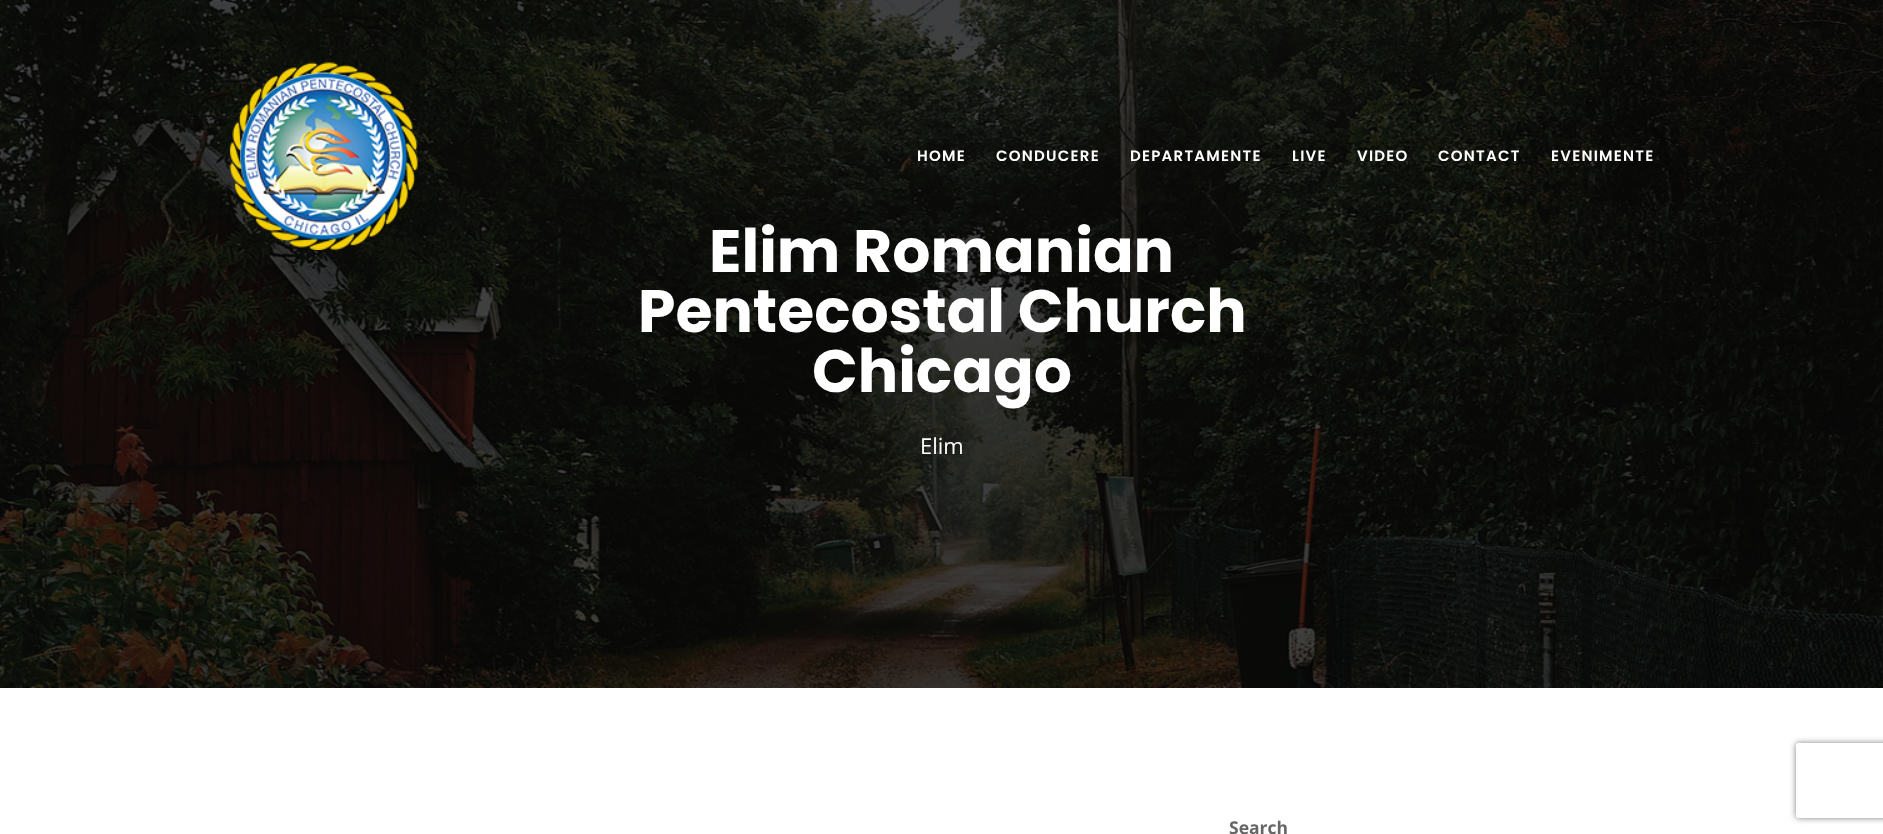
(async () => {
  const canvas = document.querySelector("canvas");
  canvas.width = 1883;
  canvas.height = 834;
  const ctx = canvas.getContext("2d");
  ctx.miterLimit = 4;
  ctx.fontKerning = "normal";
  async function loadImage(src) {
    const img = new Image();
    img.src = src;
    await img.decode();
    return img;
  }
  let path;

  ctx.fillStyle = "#ffffff";
  ctx.fillRect(0, 0, 1883, 834);
  ctx.drawImage(await loadImage("img/2.png"), 0, 0, 1883, 688);
  ctx.drawImage(await loadImage("img/1.png"), 229, 62, 189, 188);
  ctx.save();
  path = new Path2D("M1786 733H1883V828H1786ZM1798.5 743H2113.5C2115 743 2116 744 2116 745.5V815.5C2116 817 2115 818 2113.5 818H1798.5C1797 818 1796 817 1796 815.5V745.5C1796 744 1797 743 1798.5 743Z");
  ctx.clip(path, "evenodd");
  ctx.fillStyle = "#808080";
  ctx.filter = "blur(3px)";
  ctx.beginPath();
  ctx.roundRect(1796, 743, 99, 75, 2.5);
  ctx.fill();
  ctx.filter = "none";
  ctx.restore();
  ctx.letterSpacing = "1.25px";
  ctx.font = "600 15px Poppins";
  for (const [text, x, y] of [
    ["HOME", 917, 161],
    ["CONDUCERE", 996, 161],
    ["DEPARTAMENTE", 1130, 161],
    ["LIVE", 1292, 161],
    ["VIDEO", 1357, 161],
    ["CONTACT", 1438, 161],
    ["EVENIMENTE", 1551, 161],
  ]) {
    ctx.fillText(text, x, y);
  }
  ctx.letterSpacing = "0px";
  ctx.font = "bold 60px Poppins";
  for (const [text, x, y] of [
    ["Elim Romanian", 709, 272],
    ["Pentecostal Church", 638, 332],
    ["Chicago", 812, 392],
  ]) {
    ctx.fillText(text, x, y);
  }
  ctx.font = "22px Open Sans";
  ctx.fillText("Elim", 920, 454);
  ctx.font = "bold 17.5px Open Sans";
  ctx.fillStyle = "#666666";
  ctx.fillText("Search", 1229, 834);
})();
